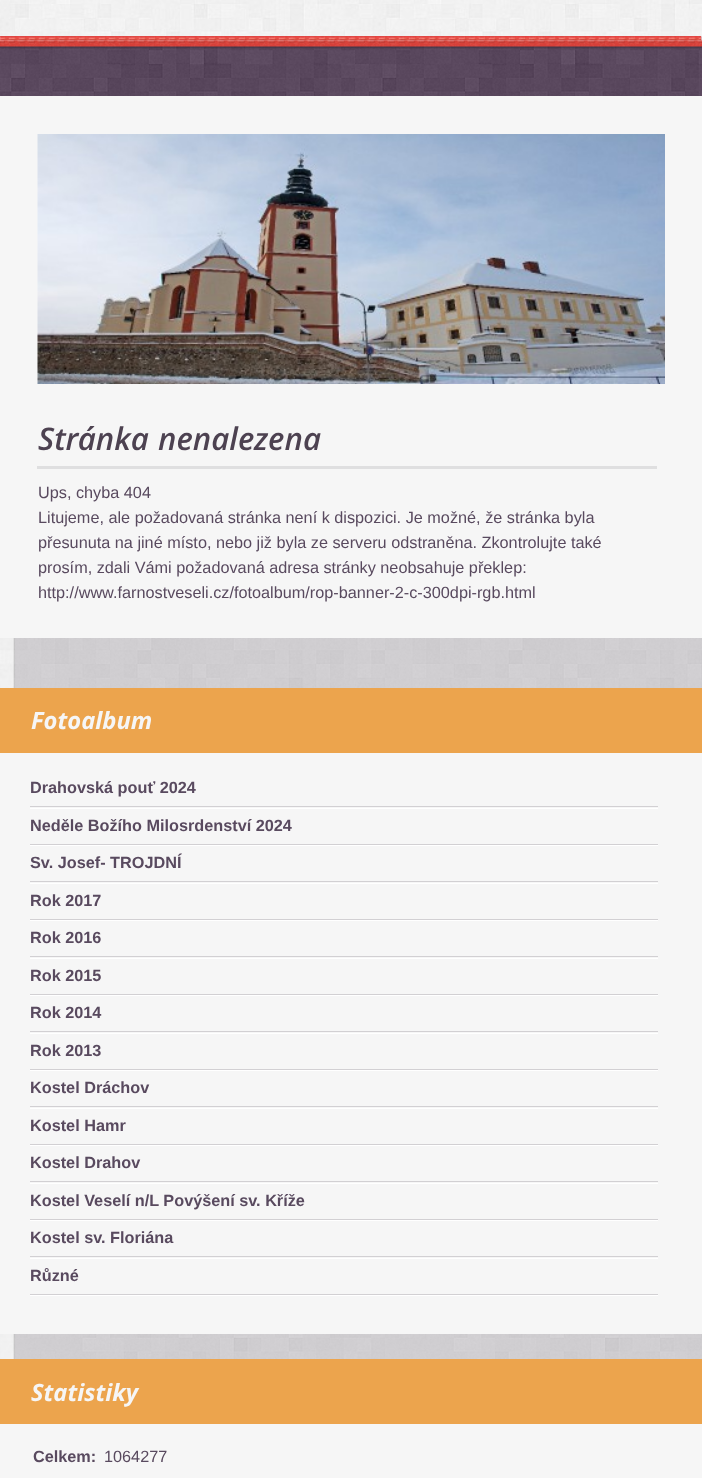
(async () => {
  const canvas = document.querySelector("canvas");
  canvas.width = 702;
  canvas.height = 1478;
  const ctx = canvas.getContext("2d");
  ctx.miterLimit = 4;
  ctx.fontKerning = "normal";
  async function loadImage(src) {
    const img = new Image();
    img.src = src;
    await img.decode();
    return img;
  }

  ctx.fillStyle = "#ffffff";
  ctx.fillRect(0, 0, 702, 1478);
  ctx.drawImage(await loadImage("img/1.png"), 0, 0, 14, 1359);
  ctx.drawImage(await loadImage("img/2.png"), 13, 36, 689, 1323);
  ctx.drawImage(await loadImage("img/3.png"), 13, 0, 689, 37);
  ctx.fillStyle = "#d9433e";
  ctx.fillRect(0, 36, 701, 1);
  ctx.drawImage(await loadImage("img/5.png"), 0, 40, 702, 56);
  ctx.drawImage(await loadImage("img/4.png"), 0, 36, 702, 5);
  ctx.fillStyle = "#f6f6f6";
  ctx.fillRect(0, 96, 702, 542);
  ctx.drawImage(await loadImage("img/6.png"), 37, 134, 628, 250);
  for (const [x, y, w, h, color] of [
    [37, 466, 620, 3, "#dfdfe0"],
    [0, 688, 702, 65, "#eca44d"],
    [0, 753, 702, 581, "#f6f6f6"],
    [30, 808, 628, 1, "#ffffff"],
    [30, 806, 628, 1, "#d2d0d3"],
    [30, 845, 628, 1, "#ffffff"],
    [30, 844, 628, 1, "#d2d0d3"],
    [30, 883, 628, 1, "#ffffff"],
    [30, 881, 628, 1, "#d2d0d3"],
    [30, 920, 628, 1, "#ffffff"],
    [30, 919, 628, 1, "#d2d0d3"],
    [30, 958, 628, 1, "#ffffff"],
    [30, 956, 628, 1, "#d2d0d3"],
    [30, 995, 628, 1, "#ffffff"],
    [30, 994, 628, 1, "#d2d0d3"],
    [30, 1033, 628, 1, "#ffffff"],
    [30, 1031, 628, 1, "#d2d0d3"],
    [30, 1070, 628, 1, "#ffffff"],
    [30, 1069, 628, 1, "#d2d0d3"],
    [30, 1108, 628, 1, "#ffffff"],
    [30, 1106, 628, 1, "#d2d0d3"],
    [30, 1145, 628, 1, "#ffffff"],
    [30, 1144, 628, 1, "#d2d0d3"],
    [30, 1183, 628, 1, "#ffffff"],
    [30, 1181, 628, 1, "#d2d0d3"],
    [30, 1220, 628, 1, "#ffffff"],
    [30, 1219, 628, 1, "#d2d0d3"],
    [30, 1258, 628, 1, "#ffffff"],
    [30, 1256, 628, 1, "#d2d0d3"],
    [30, 1295, 628, 1, "#ffffff"],
    [30, 1294, 628, 1, "#d2d0d3"],
    [0, 1359, 702, 65, "#eca44d"],
    [0, 1424, 702, 54, "#f6f6f6"],
  ]) {
    ctx.fillStyle = color;
    ctx.fillRect(x, y, w, h);
  }
  ctx.wordSpacing = "1px";
  ctx.font = "italic 600 31.25px Open Sans";
  ctx.fillStyle = "#4d4251";
  ctx.fillText("Stránka nenalezena", 38, 450);
  ctx.wordSpacing = "0px";
  ctx.font = "16.25px Liberation Sans";
  ctx.fillStyle = "#594a5f";
  for (const [text, x, y] of [
    ["Ups, chyba 404", 38, 498],
    ["Litujeme, ale požadovaná stránka není k dispozici. Je možné, že stránka byla", 38, 523],
    ["přesunuta na jiné místo, nebo již byla ze serveru odstraněna. Zkontrolujte také", 38, 548],
    ["prosím, zdali Vámi požadovaná adresa stránky neobsahuje překlep:", 38, 573],
    ["http://www.farnostveseli.cz/fotoalbum/rop-banner-2-c-300dpi-rgb.html", 38, 598],
  ]) {
    ctx.fillText(text, x, y);
  }
  ctx.font = "italic bold 23.75px Open Sans";
  ctx.fillStyle = "#f6f6f6";
  ctx.fillText("Fotoalbum", 31, 729);
  ctx.font = "bold 16.25px Liberation Sans";
  ctx.fillStyle = "#594a5f";
  for (const [text, x, y] of [
    ["Drahovská pouť 2024", 30, 793],
    ["Neděle Božího Milosrdenství 2024", 30, 831],
    ["Sv. Josef- TROJDNÍ", 30, 868],
    ["Rok 2017", 30, 906],
    ["Rok 2016", 30, 943],
    ["Rok 2015", 30, 981],
    ["Rok 2014", 30, 1018],
    ["Rok 2013", 30, 1056],
    ["Kostel Dráchov", 30, 1093],
    ["Kostel Hamr", 30, 1131],
    ["Kostel Drahov", 30, 1168],
    ["Kostel Veselí n/L Povýšení sv. Kříže", 30, 1206],
    ["Kostel sv. Floriána", 30, 1243],
    ["Různé", 30, 1281],
  ]) {
    ctx.fillText(text, x, y);
  }
  ctx.font = "italic bold 23.75px Open Sans";
  ctx.fillStyle = "#f6f6f6";
  ctx.fillText("Statistiky", 31, 1401);
  ctx.font = "bold 16.25px Liberation Sans";
  ctx.fillStyle = "#594a5f";
  ctx.fillText("Celkem:", 33, 1462);
  ctx.font = "16.25px Liberation Sans";
  ctx.fillText("1064277", 104, 1462);
})();
